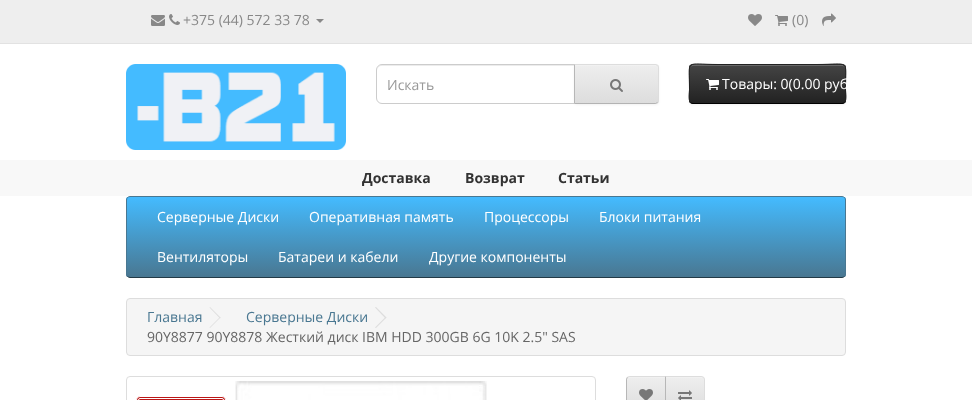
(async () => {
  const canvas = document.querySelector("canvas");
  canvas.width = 972;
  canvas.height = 400;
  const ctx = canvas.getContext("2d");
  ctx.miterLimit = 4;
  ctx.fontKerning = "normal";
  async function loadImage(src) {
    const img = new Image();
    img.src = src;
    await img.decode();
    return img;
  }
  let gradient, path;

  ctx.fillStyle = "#ffffff";
  ctx.fillRect(0, 0, 972, 400);
  ctx.fillStyle = "#eeeeee";
  ctx.fillRect(0, 0, 972, 43);
  ctx.fillStyle = "#e2e2e2";
  ctx.fillRect(0, 43, 972, 1);
  ctx.drawImage(await loadImage("img/1.png"), 151, 15, 14, 11);
  ctx.drawImage(await loadImage("img/2.png"), 169, 14, 11, 11);
  ctx.fillStyle = "#888888";
  path = new Path2D("M316 19H324L320 23Z");
  ctx.fill(path);
  ctx.drawImage(await loadImage("img/3.png"), 748, 14, 14, 12);
  ctx.drawImage(await loadImage("img/4.png"), 775, 15, 13, 11);
  ctx.drawImage(await loadImage("img/5.png"), 822, 13, 14, 13);
  ctx.drawImage(await loadImage("img/6.png"), 126, 64, 220, 86);
  ctx.fillStyle = "#ececec";
  path = new Path2D("M382 66H574V65H381C378 66 377 68 377 71C377 68 379 66 382 66Z");
  ctx.fill(path);
  ctx.beginPath();
  ctx.roundRect(376.5, 64.5, 198, 39, [5.5, 0, 0, 5.5]);
  ctx.strokeStyle = "#cccccc";
  ctx.stroke();
  ctx.fillStyle = "rgba(0, 0, 0, 0.05)";
  ctx.filter = "blur(1px)";
  ctx.beginPath();
  ctx.roundRect(574, 65, 85, 40, 4);
  ctx.fill();
  ctx.filter = "none";
  ctx.fillStyle = "#e7e7e7";
  ctx.beginPath();
  ctx.roundRect(574, 64, 85, 40, [0, 4, 4, 0]);
  ctx.fill();
  ctx.save();
  ctx.beginPath();
  ctx.roundRect(574, 64, 85, 40, [0, 4, 4, 0]);
  ctx.clip();
  gradient = ctx.createLinearGradient(617, 65, 617, 103);
  gradient.addColorStop(0, "#eeeeee");
  gradient.addColorStop(1, "#dddddd");
  ctx.fillStyle = gradient;
  ctx.fillRect(575, 65, 84, 38);
  ctx.restore();
  ctx.fillStyle = "#f1f1f1";
  path = new Path2D("M575 66H655C657 66 658 67 658 69V68C658 66 657 65 655 65H575Z");
  ctx.fill(path);
  ctx.fillStyle = "#dddddd";
  path = new Path2D("M574 64L575 65H656L657 66L658 65L655 64Z");
  ctx.fill(path);
  path = new Path2D("M659 100V68C659 67 658.5 66 658 65L657 66C658 66 658 67 658 68V100C658 101 658 102 657 102L658 103C658.5 102 659 101 659 100Z");
  ctx.fill(path);
  ctx.fillStyle = "#b3b3b3";
  path = new Path2D("M655 104L658 103L657 102L656 103H575L574 104Z");
  ctx.fill(path);
  ctx.fillStyle = "#b7b7b7";
  path = new Path2D("M574 64V104L575 103V65Z");
  ctx.fill(path);
  ctx.drawImage(await loadImage("img/7.png"), 610, 79, 13, 13);
  ctx.fillStyle = "rgba(0, 0, 0, 0.05)";
  ctx.filter = "blur(1px)";
  ctx.beginPath();
  ctx.roundRect(689, 65, 157, 40, 4);
  ctx.fill();
  ctx.filter = "none";
  ctx.fillStyle = "#363636";
  ctx.beginPath();
  ctx.roundRect(689, 64, 157, 40, 4);
  ctx.fill();
  ctx.save();
  ctx.beginPath();
  ctx.roundRect(689, 64, 157, 40, 4);
  ctx.clip();
  gradient = ctx.createLinearGradient(768, 65, 768, 103);
  gradient.addColorStop(0, "#444444");
  gradient.addColorStop(1, "#222222");
  ctx.fillStyle = gradient;
  ctx.fillRect(689, 65, 157, 38);
  ctx.restore();
  ctx.fillStyle = "rgba(255, 255, 255, 0.2)";
  path = new Path2D("M693 66H842C844 66 845 67 845 69C845 67 845 66 843 65H718C710 65 690 60 690 69C690 67 691 66 693 66Z");
  ctx.fill(path);
  path = new Path2D("M844.5 102.5C844 103 843 103.5 842 103.5H693C692 103.5 691 103 690.5 102.5");
  ctx.strokeStyle = "#000000";
  ctx.stroke(path);
  path = new Path2D("M690.5 102.5C688 100 689.5 92 689.5 89.5C689.5 58 684 64.5 718 64.5H817C851 64.5 845.5 58 845.5 89.5C845.5 92 847 100 844.5 102.5");
  ctx.strokeStyle = "#222222";
  ctx.stroke(path);
  ctx.drawImage(await loadImage("img/8.png"), 706, 79, 13, 11);
  ctx.fillStyle = "#f8f8f8";
  ctx.fillRect(0, 160, 972, 36);
  ctx.save();
  ctx.beginPath();
  ctx.roundRect(126, 196, 720, 82, 4);
  ctx.clip();
  gradient = ctx.createLinearGradient(486, 197, 486, 277);
  gradient.addColorStop(0, "#44bbff");
  gradient.addColorStop(1, "#497791");
  ctx.fillStyle = gradient;
  ctx.fillRect(126, 197, 720, 80);
  ctx.restore();
  path = new Path2D("M844.5 276.5C844 277 843 277.5 842 277.5H130C129 277.5 128 277 127.5 276.5");
  ctx.strokeStyle = "#233a46";
  ctx.stroke(path);
  path = new Path2D("M127.5 276.5C127 276 126.5 275 126.5 274V200C126.5 199 127 198 127.5 197.5C128 197 129 196.5 130 196.5H842C843 196.5 844 197 844.5 197.5C845 198 845.5 199 845.5 200V274C845.5 275 845 276 844.5 276.5");
  ctx.strokeStyle = "#497791";
  ctx.stroke(path);
  ctx.fillStyle = "#f5f5f5";
  ctx.beginPath();
  ctx.roundRect(126.5, 298.5, 719, 57, 3.5);
  ctx.fill();
  ctx.strokeStyle = "#dddddd";
  ctx.stroke();
  ctx.fillStyle = "#dddddd";
  path = new Path2D("M209.5 307.5L210 307L220.5 317.5L220 318.5Z");
  ctx.fill(path);
  path = new Path2D("M209.5 327.5L220 317L220.5 317.5L210 328Z");
  ctx.fill(path);
  path = new Path2D("M375 307.5L376 307L386.5 317.5L385.5 318.5Z");
  ctx.fill(path);
  path = new Path2D("M375 327.5L385.5 317L386.5 317.5L376 328Z");
  ctx.fill(path);
  ctx.beginPath();
  ctx.roundRect(126.5, 376.5, 469, 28, 3.5);
  ctx.stroke();
  ctx.drawImage(await loadImage("img/9.png"), 235, 381, 252, 19);
  ctx.fillStyle = "#bb1616";
  ctx.beginPath();
  ctx.roundRect(136.5, 396.5, 89, 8, 3.5);
  ctx.fill();
  ctx.strokeStyle = "#ffffff";
  ctx.stroke();
  ctx.beginPath();
  ctx.roundRect(138.5, 398.5, 85, 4, 1.5);
  ctx.stroke();
  ctx.save();
  path = new Path2D("M630 376H666V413H630C628 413 626 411 626 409V380C626 378 628 376 630 376Z");
  ctx.clip(path);
  gradient = ctx.createLinearGradient(646, 377, 646, 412);
  gradient.addColorStop(0, "#eeeeee");
  gradient.addColorStop(1, "#dddddd");
  ctx.fillStyle = gradient;
  ctx.fillRect(626, 377, 39, 23);
  ctx.restore();
  ctx.fillStyle = "#f1f1f1";
  path = new Path2D("M630 378H665V377H630C628.5 377 627 378.5 627 380V381C627 379 628 378 630 378Z");
  ctx.fill(path);
  ctx.fillStyle = "#dddddd";
  path = new Path2D("M630 376C629 376 628 376.5 627 377L628 378C628 377 629 377 630 377H665L666 376Z");
  ctx.fill(path);
  ctx.fillStyle = "#b7b7b7";
  path = new Path2D("M626 380V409C626 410 626.5 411 627 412L628 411C627 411 627 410 627 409V380C627 379 627 378 628 378L627 377C626.5 378 626 379 626 380Z");
  ctx.fill(path);
  ctx.drawImage(await loadImage("img/10.png"), 639, 389, 14, 11);
  ctx.save();
  path = new Path2D("M665 376H701C703 376 705 378 705 380V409C705 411 703 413 701 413H665Z");
  ctx.clip(path);
  gradient = ctx.createLinearGradient(685, 377, 685, 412);
  gradient.addColorStop(0, "#eeeeee");
  gradient.addColorStop(1, "#dddddd");
  ctx.fillStyle = gradient;
  ctx.fillRect(666, 377, 39, 23);
  ctx.restore();
  ctx.fillStyle = "#f1f1f1";
  path = new Path2D("M666 378H701C703 378 704 379 704 381V380C704 378.5 702.5 377 701 377H666Z");
  ctx.fill(path);
  ctx.fillStyle = "#dddddd";
  path = new Path2D("M665 376L666 377H701C702 377 703 377 703 378L704 377C703 376.5 702 376 701 376Z");
  ctx.fill(path);
  path = new Path2D("M705 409V380C705 379 704.5 378 704 377L703 378C704 378 704 379 704 380V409C704 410 704 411 703 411L704 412C704.5 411 705 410 705 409Z");
  ctx.fill(path);
  ctx.fillStyle = "#b7b7b7";
  path = new Path2D("M665 376V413L666 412V377Z");
  ctx.fill(path);
  ctx.drawImage(await loadImage("img/11.png"), 678, 390, 14, 10);
  ctx.font = "14px Open Sans";
  ctx.fillStyle = "#888888";
  ctx.fillText("+375 (44) 572 33 78", 183, 25);
  ctx.fillText("(0)", 792, 25);
  ctx.fillStyle = "#999999";
  ctx.fillText("Искать", 387, 90);
  ctx.fillStyle = "#ffffff";
  ctx.fillText("Товары: 0(0.00 руб", 722, 89);
  ctx.font = "bold 14px Open Sans";
  ctx.fillStyle = "#333333";
  for (const [text, x, y] of [
    ["Доставка", 362, 183],
    ["Возврат", 465, 183],
    ["Статьи", 558, 183],
  ]) {
    ctx.fillText(text, x, y);
  }
  ctx.font = "14px Open Sans";
  ctx.fillStyle = "#ffffff";
  for (const [text, x, y] of [
    ["Серверные Диски", 157, 222],
    ["Оперативная память", 309, 222],
    ["Процессоры", 484, 222],
    ["Блоки питания", 599, 222],
    ["Вентиляторы", 157, 262],
    ["Батареи и кабели", 278, 262],
    ["Другие компоненты", 429, 262],
  ]) {
    ctx.fillText(text, x, y);
  }
  ctx.fillStyle = "#497791";
  ctx.fillText("Главная", 147, 322);
  ctx.fillText("Серверные Диски", 246, 322);
  ctx.fillStyle = "#666666";
  ctx.fillText("90Y8877 90Y8878 Жесткий диск IBM HDD 300GB 6G 10K 2.5\" SAS", 147, 342);
})();
